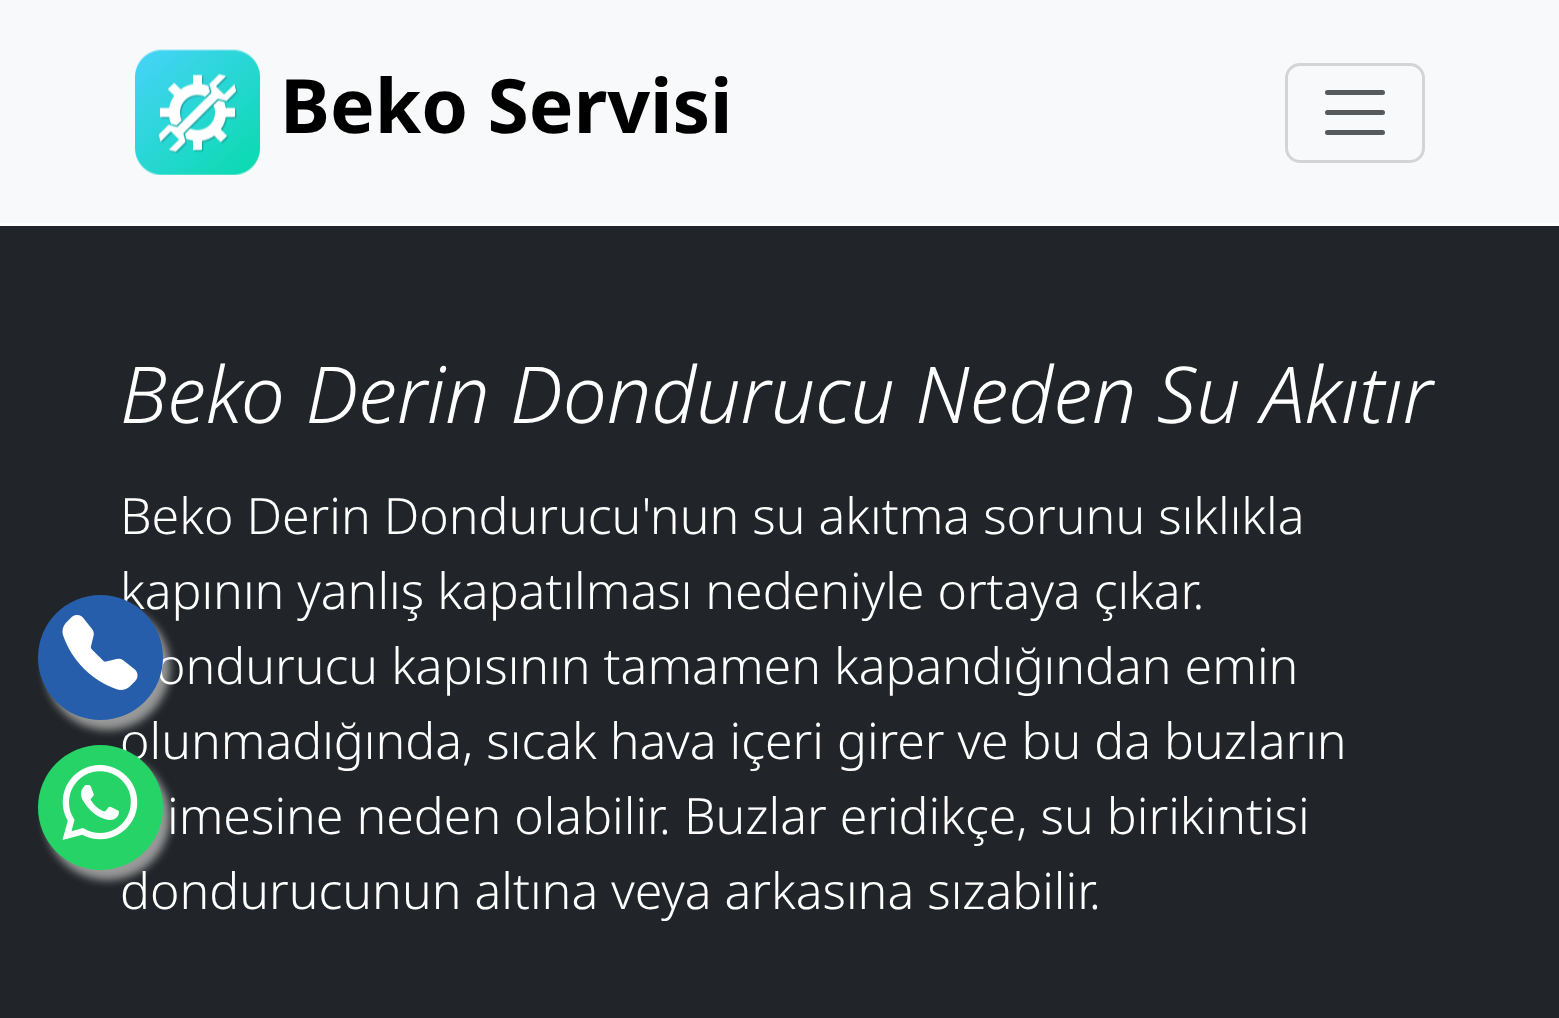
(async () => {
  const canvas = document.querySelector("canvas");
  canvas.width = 1559;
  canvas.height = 1018;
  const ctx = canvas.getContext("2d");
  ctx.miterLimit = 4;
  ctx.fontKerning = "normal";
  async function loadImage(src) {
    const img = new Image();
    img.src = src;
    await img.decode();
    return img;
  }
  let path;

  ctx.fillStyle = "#212529";
  ctx.fillRect(0, 0, 1559, 1018);
  ctx.fillStyle = "#f8f9fa";
  ctx.fillRect(0, 0, 1559, 223);
  ctx.fillStyle = "#ffffff";
  ctx.fillRect(0, 223, 1559, 3);
  ctx.drawImage(await loadImage("img/1.png"), 135, 49, 125, 126);
  ctx.beginPath();
  ctx.roundRect(1286.5, 64.5, 137, 97, 13.5);
  ctx.strokeStyle = "#d3d4d5";
  ctx.lineWidth = 3;
  ctx.stroke();
  path = new Path2D("M1327.5 92.5H1382.5M1327.5 112.5H1382.5M1327.5 132.5H1382.5");
  ctx.strokeStyle = "#575a5d";
  ctx.lineWidth = 5;
  ctx.lineCap = "round";
  ctx.stroke(path);
  ctx.fillStyle = "#999999";
  ctx.filter = "blur(4px)";
  ctx.beginPath();
  ctx.roundRect(45, 605, 125, 125, 62.5);
  ctx.fill();
  ctx.filter = "none";
  ctx.filter = "blur(4px)";
  ctx.beginPath();
  ctx.roundRect(45, 755, 125, 125, 62.5);
  ctx.fill();
  ctx.filter = "none";
  ctx.font = "bold 75px Noto Sans";
  ctx.fillStyle = "#000000";
  ctx.fillText("Beko Servisi", 280, 133);
  ctx.font = "italic 300 78.4px Noto Sans";
  ctx.fillStyle = "#ffffff";
  ctx.fillText("Beko Derin Dondurucu Neden Su Akıtır", 120, 423);
  ctx.font = "300 50px Noto Sans";
  for (const [text, x, y] of [
    ["Beko Derin Dondurucu'nun su akıtma sorunu sıklıkla", 120, 534],
    ["kapının yanlış kapatılması nedeniyle ortaya çıkar.", 120, 609],
    ["ondurucu kapısının tamamen kapandığından emin", 156, 684],
  ]) {
    ctx.fillText(text, x, y);
  }
  ctx.fillStyle = "#275eab";
  ctx.beginPath();
  ctx.arc(100.5, 657.5, 62.5, 0, Math.PI * 2);
  ctx.fill();
  ctx.drawImage(await loadImage("img/2.png"), 62, 615, 76, 75);
  ctx.fillStyle = "#ffffff";
  for (const [text, x, y] of [
    ["olunmadığında, sıcak hava içeri girer ve bu da buzların", 120, 759],
    ["imesine neden olabilir. Buzlar eridikçe, su birikintisi", 167, 834],
    ["dondurucunun altına veya arkasına sızabilir.", 120, 909],
  ]) {
    ctx.fillText(text, x, y);
  }
  ctx.fillStyle = "#25d366";
  ctx.beginPath();
  ctx.arc(100.5, 807.5, 62.5, 0, Math.PI * 2);
  ctx.fill();
  ctx.drawImage(await loadImage("img/3.png"), 62, 765, 76, 75);
})();
